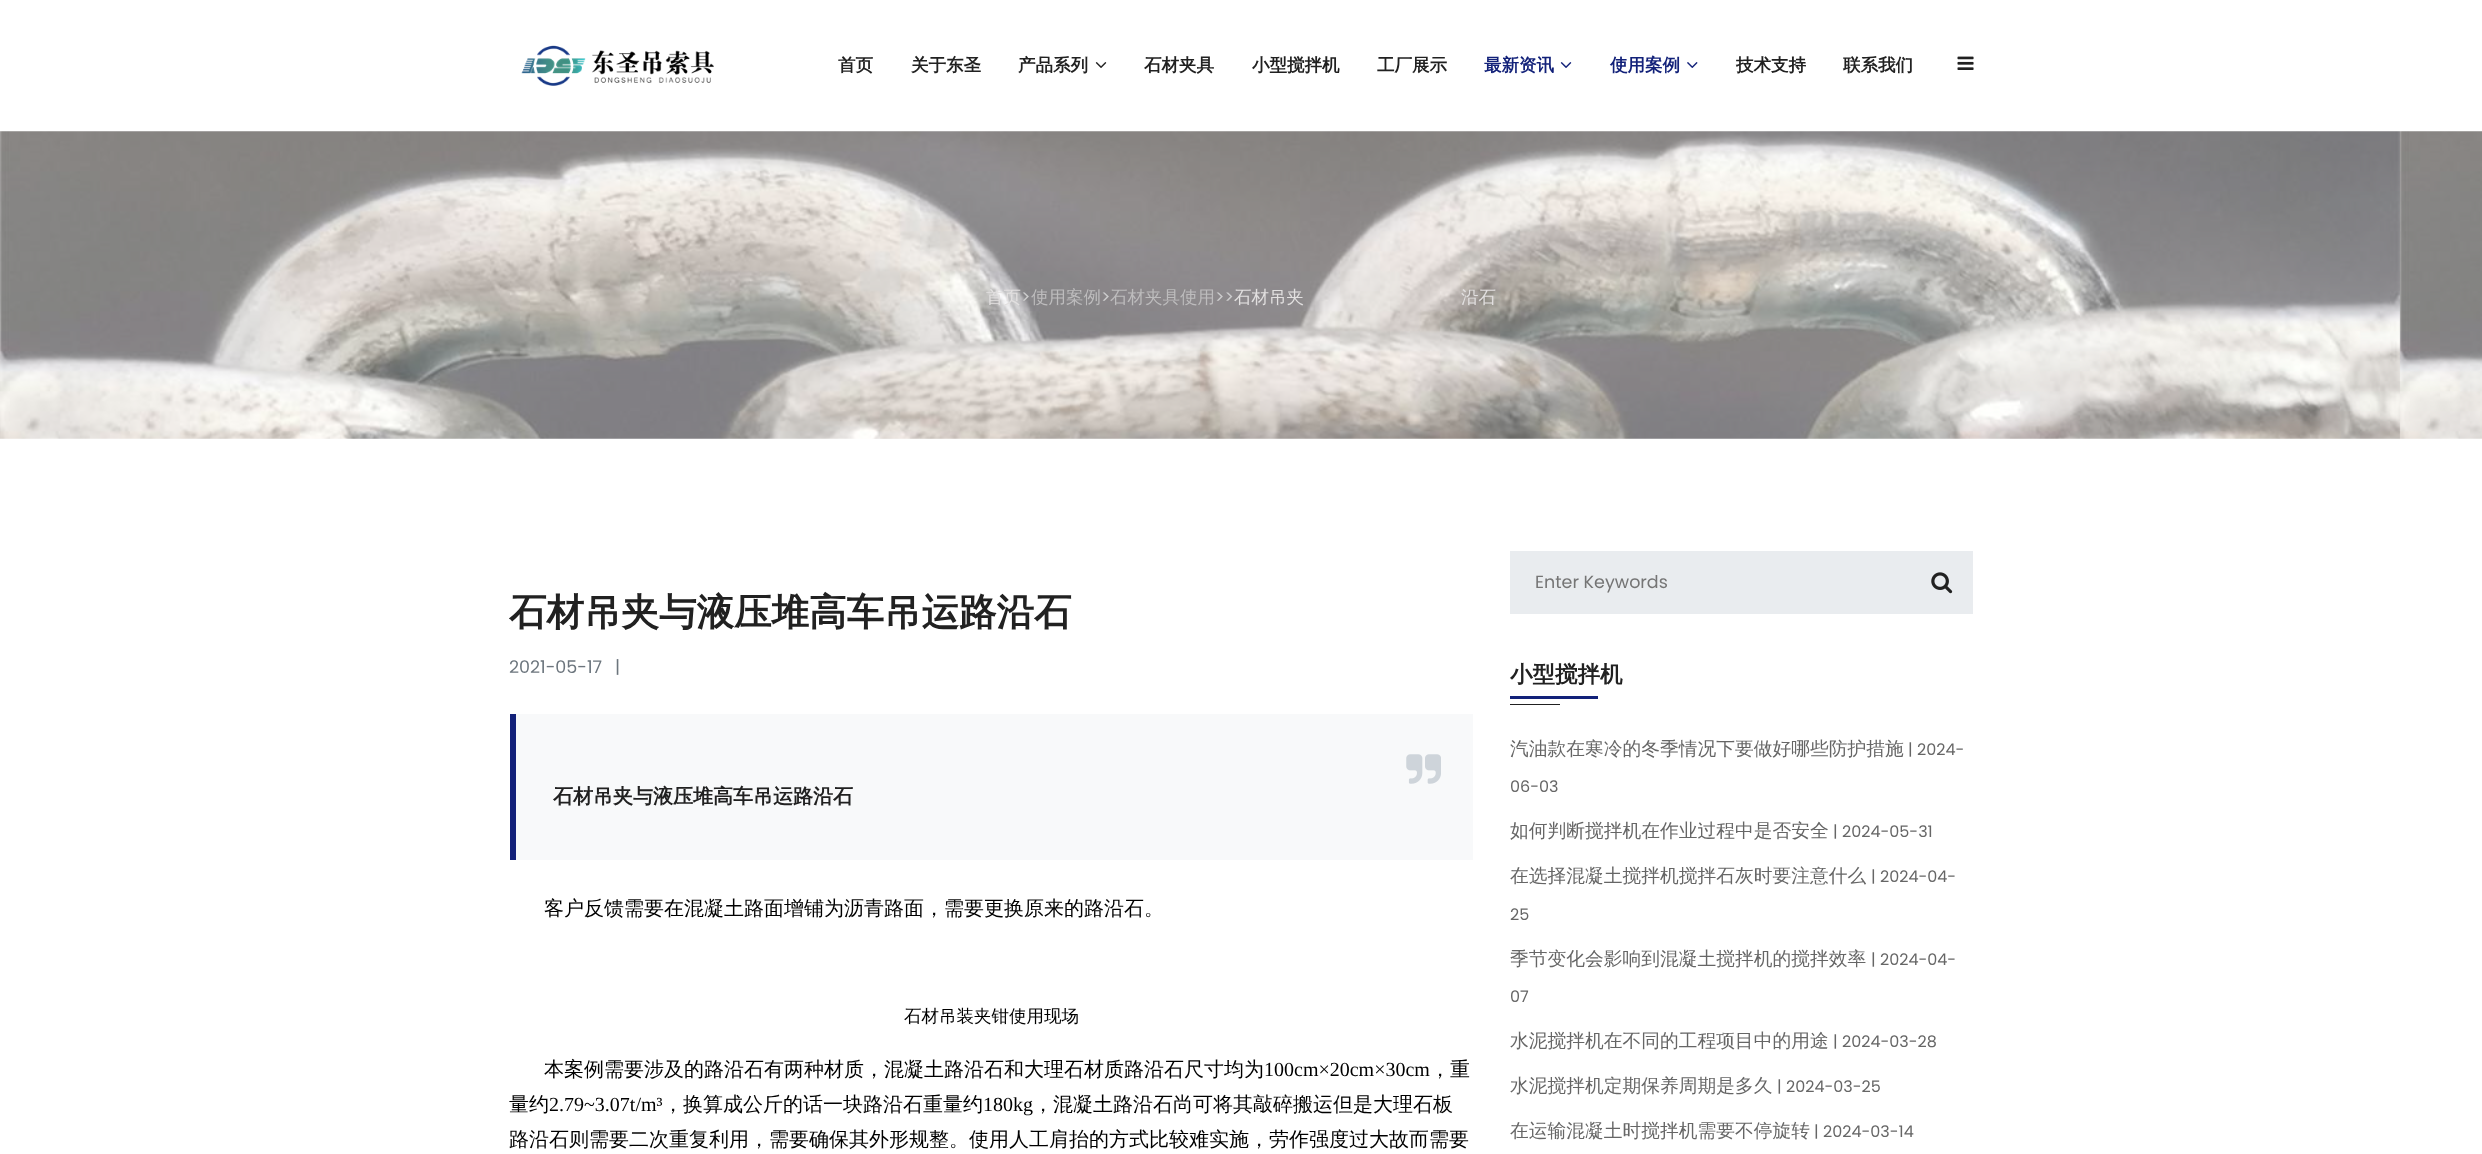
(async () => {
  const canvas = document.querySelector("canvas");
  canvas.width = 2482;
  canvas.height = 1154;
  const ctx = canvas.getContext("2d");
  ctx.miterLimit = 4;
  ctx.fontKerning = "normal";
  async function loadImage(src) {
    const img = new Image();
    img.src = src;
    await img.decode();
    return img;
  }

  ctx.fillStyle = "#ffffff";
  ctx.fillRect(0, 0, 2482, 1154);
  ctx.drawImage(await loadImage("img/1.png"), 521, 45, 193, 41);
  ctx.drawImage(await loadImage("img/2.png"), 1095, 62, 12, 6);
  ctx.drawImage(await loadImage("img/3.png"), 1560, 62, 12, 6);
  ctx.drawImage(await loadImage("img/4.png"), 1687, 62, 11, 6);
  ctx.drawImage(await loadImage("img/5.png"), 1957, 56, 17, 14);
  ctx.drawImage(await loadImage("img/6.png"), 0, 131, 2482, 308);
  ctx.fillStyle = "#f8f9fa";
  ctx.fillRect(516, 714, 957, 146);
  ctx.fillStyle = "#122179";
  ctx.fillRect(510, 714, 6, 146);
  ctx.drawImage(await loadImage("img/7.png"), 1406, 754, 35, 30);
  ctx.fillStyle = "#e9ecef";
  ctx.fillRect(1510, 551, 463, 63);
  ctx.drawImage(await loadImage("img/8.png"), 1931, 572, 22, 22);
  ctx.fillStyle = "#122179";
  ctx.fillRect(1510, 696, 88, 3);
  ctx.fillStyle = "#212121";
  ctx.fillRect(1510, 704, 50, 1);
  ctx.font = "bold 17.5px WenQuanYi Zen Hei";
  for (const [text, x, y] of [
    ["首页", 838, 71],
    ["关于东圣", 911, 71],
    ["产品系列", 1018, 71],
    ["石材夹具", 1144, 71],
    ["小型搅拌机", 1252, 71],
    ["工厂展示", 1377, 71],
  ]) {
    ctx.fillText(text, x, y);
  }
  ctx.fillStyle = "#122179";
  ctx.fillText("最新资讯", 1484, 71);
  ctx.fillText("使用案例", 1610, 71);
  ctx.fillStyle = "#212121";
  ctx.fillText("技术支持", 1736, 71);
  ctx.fillText("联系我们", 1843, 71);
  ctx.font = "500 17.5px WenQuanYi Zen Hei";
  ctx.fillStyle = "#e2e0e0";
  ctx.fillText("首页", 986, 303);
  ctx.font = "17.5px Poppins";
  ctx.fillStyle = "#cccccd";
  ctx.fillText(">", 1021, 303);
  ctx.font = "500 17.5px WenQuanYi Zen Hei";
  ctx.fillStyle = "#bdbcbd";
  ctx.fillText("使用案例", 1031, 303);
  ctx.font = "17.5px Poppins";
  ctx.fillStyle = "#cccccd";
  ctx.fillText(">", 1101, 303);
  ctx.font = "500 17.5px WenQuanYi Zen Hei";
  ctx.fillStyle = "#bdbcbd";
  ctx.fillText("石材夹具使用", 1110, 303);
  ctx.font = "17.5px Poppins";
  ctx.fillStyle = "#cccccd";
  ctx.fillText(">>", 1215, 303);
  ctx.font = "500 17.5px WenQuanYi Zen Hei";
  ctx.fillStyle = "#e2e0e0";
  ctx.fillText("石材吊夹", 1234, 303);
  ctx.fillText("沿石", 1461, 303);
  ctx.font = "bold 37.5px WenQuanYi Zen Hei";
  ctx.fillStyle = "#212121";
  ctx.fillText("石材吊夹与液压堆高车吊运路沿石", 509, 625);
  ctx.font = "17.5px Poppins";
  ctx.fillStyle = "#6c757d";
  ctx.fillText("2021-05-17", 509, 673);
  ctx.fillText("|", 615, 673);
  ctx.font = "bold 20px WenQuanYi Zen Hei";
  ctx.fillStyle = "#212121";
  ctx.fillText("石材吊夹与液压堆高车吊运路沿石", 553, 803);
  ctx.font = "500 20px WenQuanYi Zen Hei";
  ctx.fillStyle = "#000000";
  ctx.fillText("客户反馈需要在混凝土路面增铺为沥青路面，需要更换原来的路沿石。", 544, 915);
  ctx.font = "500 17.5px WenQuanYi Zen Hei";
  ctx.fillText("石材吊装夹钳使用现场", 904, 1022);
  ctx.font = "500 20px WenQuanYi Zen Hei";
  ctx.fillText("本案例需要涉及的路沿石有两种材质，混凝土路沿石和大理石材质路沿石尺寸均为", 544, 1076);
  ctx.font = "20px Liberation Serif";
  ctx.fillText("100cm×20cm×30cm", 1264, 1076);
  ctx.font = "500 20px WenQuanYi Zen Hei";
  ctx.fillText("，重", 1430, 1076);
  ctx.fillText("量约", 509, 1111);
  ctx.font = "20px Liberation Serif";
  ctx.fillText("2.79~3.07t/m³", 549, 1111);
  ctx.font = "500 20px WenQuanYi Zen Hei";
  ctx.fillText("，换算成公斤的话一块路沿石重量约", 663, 1111);
  ctx.font = "20px Liberation Serif";
  ctx.fillText("180kg", 983, 1111);
  ctx.font = "500 20px WenQuanYi Zen Hei";
  ctx.fillText("，混凝土路沿石尚可将其敲碎搬运但是大理石板", 1033, 1111);
  ctx.fillText("路沿石则需要二次重复利用，需要确保其外形规整。使用人工肩抬的方式比较难实施，劳作强度过大故而需要", 509, 1146);
  ctx.font = "17.5px Poppins";
  ctx.fillStyle = "#757575";
  ctx.fillText("Enter Keywords", 1535, 588);
  ctx.font = "bold 22.5px WenQuanYi Zen Hei";
  ctx.fillStyle = "#212121";
  ctx.fillText("小型搅拌机", 1510, 682);
  ctx.font = "500 18.75px WenQuanYi Zen Hei";
  ctx.fillStyle = "#666666";
  ctx.fillText("汽油款在寒冷的冬季情况下要做好哪些防护措施", 1510, 755);
  ctx.font = "16px Poppins";
  ctx.fillText("| 2024-", 1908, 755);
  ctx.fillText("06-03", 1510, 792);
  ctx.font = "500 18.75px WenQuanYi Zen Hei";
  ctx.fillText("如何判断搅拌机在作业过程中是否安全", 1510, 837);
  ctx.font = "16px Poppins";
  ctx.fillText("| 2024-05-31", 1833, 837);
  ctx.font = "500 18.75px WenQuanYi Zen Hei";
  ctx.fillText("在选择混凝土搅拌机搅拌石灰时要注意什么", 1510, 882);
  ctx.font = "16px Poppins";
  ctx.fillText("| 2024-04-", 1871, 882);
  ctx.fillText("25", 1510, 920);
  ctx.font = "500 18.75px WenQuanYi Zen Hei";
  ctx.fillText("季节变化会影响到混凝土搅拌机的搅拌效率", 1510, 965);
  ctx.font = "16px Poppins";
  ctx.fillText("| 2024-04-", 1871, 965);
  ctx.fillText("07", 1510, 1002);
  ctx.font = "500 18.75px WenQuanYi Zen Hei";
  ctx.fillText("水泥搅拌机在不同的工程项目中的用途", 1510, 1047);
  ctx.font = "16px Poppins";
  ctx.fillText("| 2024-03-28", 1833, 1047);
  ctx.font = "500 18.75px WenQuanYi Zen Hei";
  ctx.fillText("水泥搅拌机定期保养周期是多久", 1510, 1092);
  ctx.font = "16px Poppins";
  ctx.fillText("| 2024-03-25", 1777, 1092);
  ctx.font = "500 18.75px WenQuanYi Zen Hei";
  ctx.fillText("在运输混凝土时搅拌机需要不停旋转", 1510, 1137);
  ctx.font = "16px Poppins";
  ctx.fillText("| 2024-03-14", 1814, 1137);
})();
